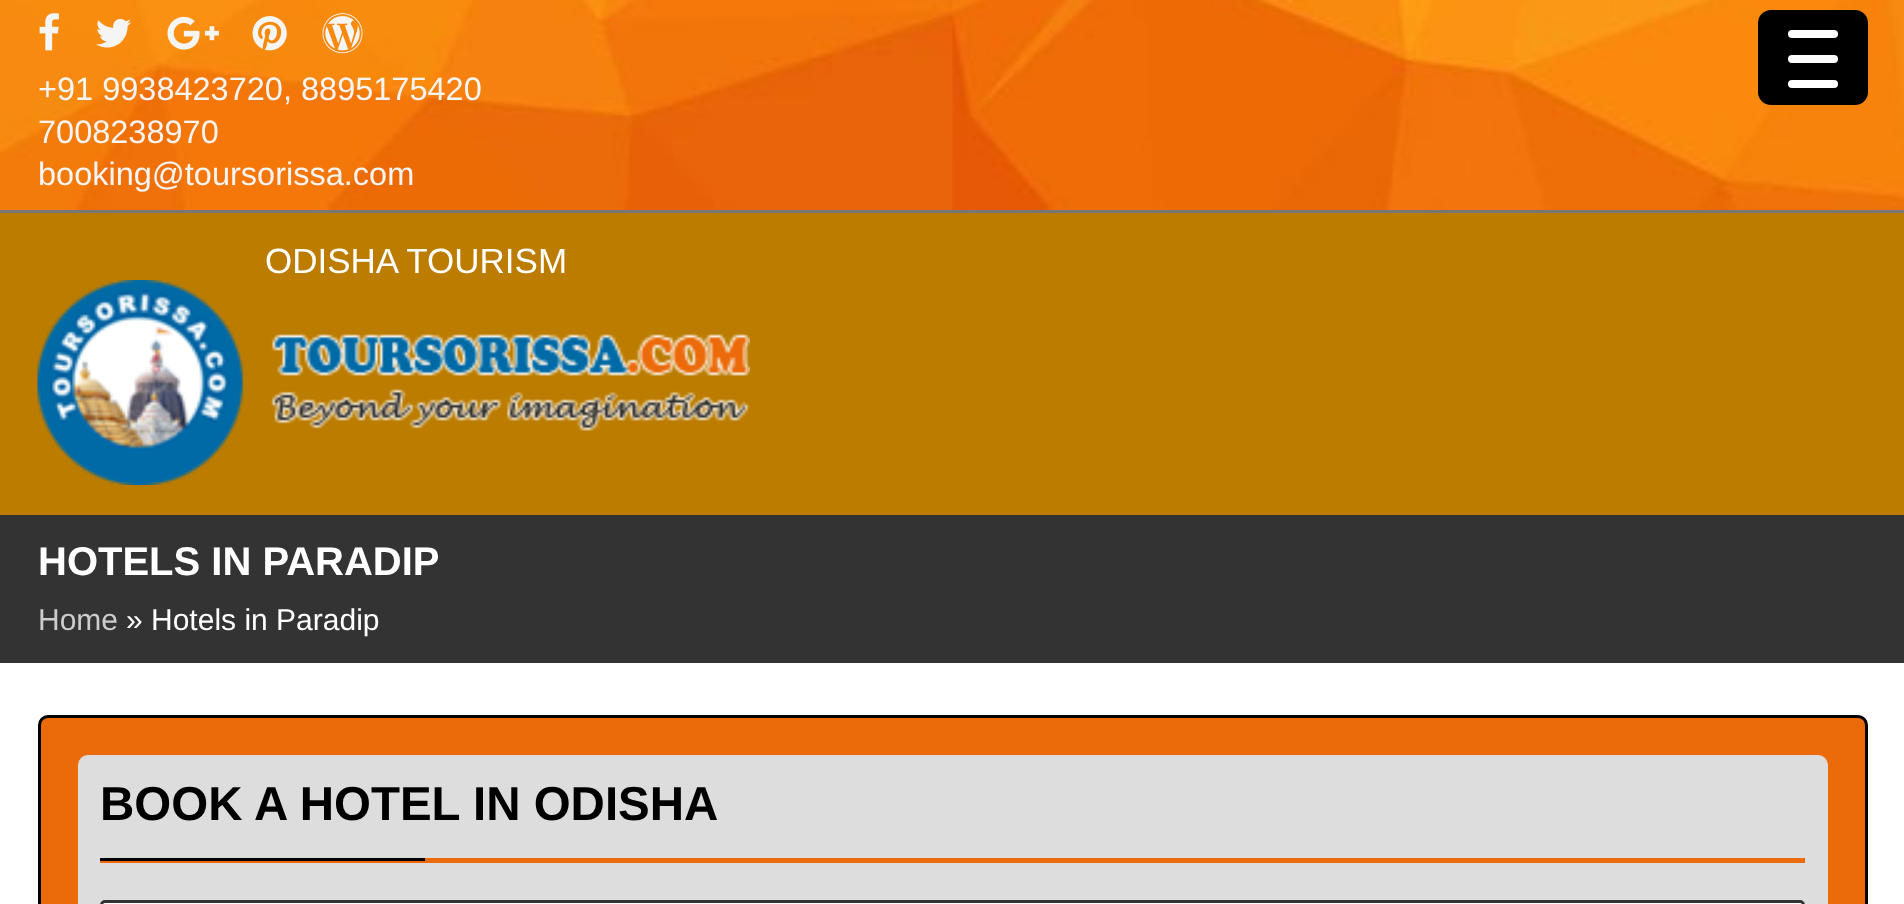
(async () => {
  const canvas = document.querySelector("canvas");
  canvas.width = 1904;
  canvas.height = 904;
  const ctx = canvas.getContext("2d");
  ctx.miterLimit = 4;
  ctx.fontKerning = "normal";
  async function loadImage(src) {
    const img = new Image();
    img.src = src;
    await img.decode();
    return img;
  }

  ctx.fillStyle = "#bb7c00";
  ctx.fillRect(0, 0, 1904, 904);
  ctx.drawImage(await loadImage("img/1.png"), 0, 0, 1904, 210);
  ctx.fillStyle = "#000000";
  ctx.beginPath();
  ctx.roundRect(1758, 10, 110, 95, 13);
  ctx.fill();
  ctx.fillStyle = "#ffffff";
  ctx.beginPath();
  ctx.roundRect(1788, 55, 50, 8, 4);
  ctx.fill();
  ctx.beginPath();
  ctx.roundRect(1788, 30, 50, 8, 4);
  ctx.fill();
  ctx.beginPath();
  ctx.roundRect(1788, 80, 50, 8, 4);
  ctx.fill();
  ctx.fillStyle = "#777777";
  ctx.fillRect(0, 210, 1904, 3);
  ctx.drawImage(await loadImage("img/2.png"), 39, 13, 20, 38);
  ctx.drawImage(await loadImage("img/3.png"), 96, 18, 35, 30);
  ctx.drawImage(await loadImage("img/4.png"), 167, 16, 52, 34);
  ctx.drawImage(await loadImage("img/5.png"), 252, 16, 35, 35);
  ctx.drawImage(await loadImage("img/6.png"), 322, 13, 41, 41);
  ctx.drawImage(await loadImage("img/7.png"), 37, 280, 713, 205);
  ctx.fillStyle = "#333333";
  ctx.fillRect(0, 515, 1904, 148);
  ctx.fillStyle = "#ffffff";
  ctx.fillRect(0, 663, 1904, 241);
  ctx.fillStyle = "#eb6b0a";
  ctx.beginPath();
  ctx.roundRect(39.5, 716.5, 1827, 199, 8.5);
  ctx.fill();
  ctx.strokeStyle = "#000000";
  ctx.lineWidth = 3;
  ctx.stroke();
  ctx.fillStyle = "#dddddd";
  ctx.beginPath();
  ctx.roundRect(78, 755, 1750, 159, 10);
  ctx.fill();
  ctx.fillStyle = "#eb6b0a";
  ctx.fillRect(100, 858, 1705, 5);
  ctx.fillStyle = "#000000";
  ctx.fillRect(100, 858, 325, 3);
  ctx.fillStyle = "#ffffff";
  ctx.beginPath();
  ctx.roundRect(101.5, 901.5, 1702, 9, 3.5);
  ctx.fill();
  ctx.strokeStyle = "#333333";
  ctx.stroke();
  ctx.font = "32.5px Liberation Sans";
  ctx.fillStyle = "#f5f5f5";
  for (const [text, x, y] of [
    ["+91 9938423720,", 38, 100],
    ["8895175420", 301, 100],
    ["7008238970", 38, 143],
    ["booking@toursorissa.com", 38, 185],
  ]) {
    ctx.fillText(text, x, y);
  }
  ctx.font = "35px Liberation Sans";
  ctx.fillStyle = "#ffffff";
  ctx.fillText("ODISHA TOURISM", 265, 273);
  ctx.font = "bold 40px Liberation Sans";
  ctx.fillText("HOTELS IN PARADIP", 38, 575);
  ctx.font = "30px Liberation Sans";
  ctx.fillStyle = "#cccccc";
  ctx.fillText("Home", 38, 630);
  ctx.fillStyle = "#ffffff";
  ctx.fillText("» Hotels in Paradip", 126, 630);
  ctx.font = "bold 47.5px Liberation Sans";
  ctx.fillStyle = "#000000";
  ctx.fillText("BOOK A HOTEL IN ODISHA", 100, 820);
})();
